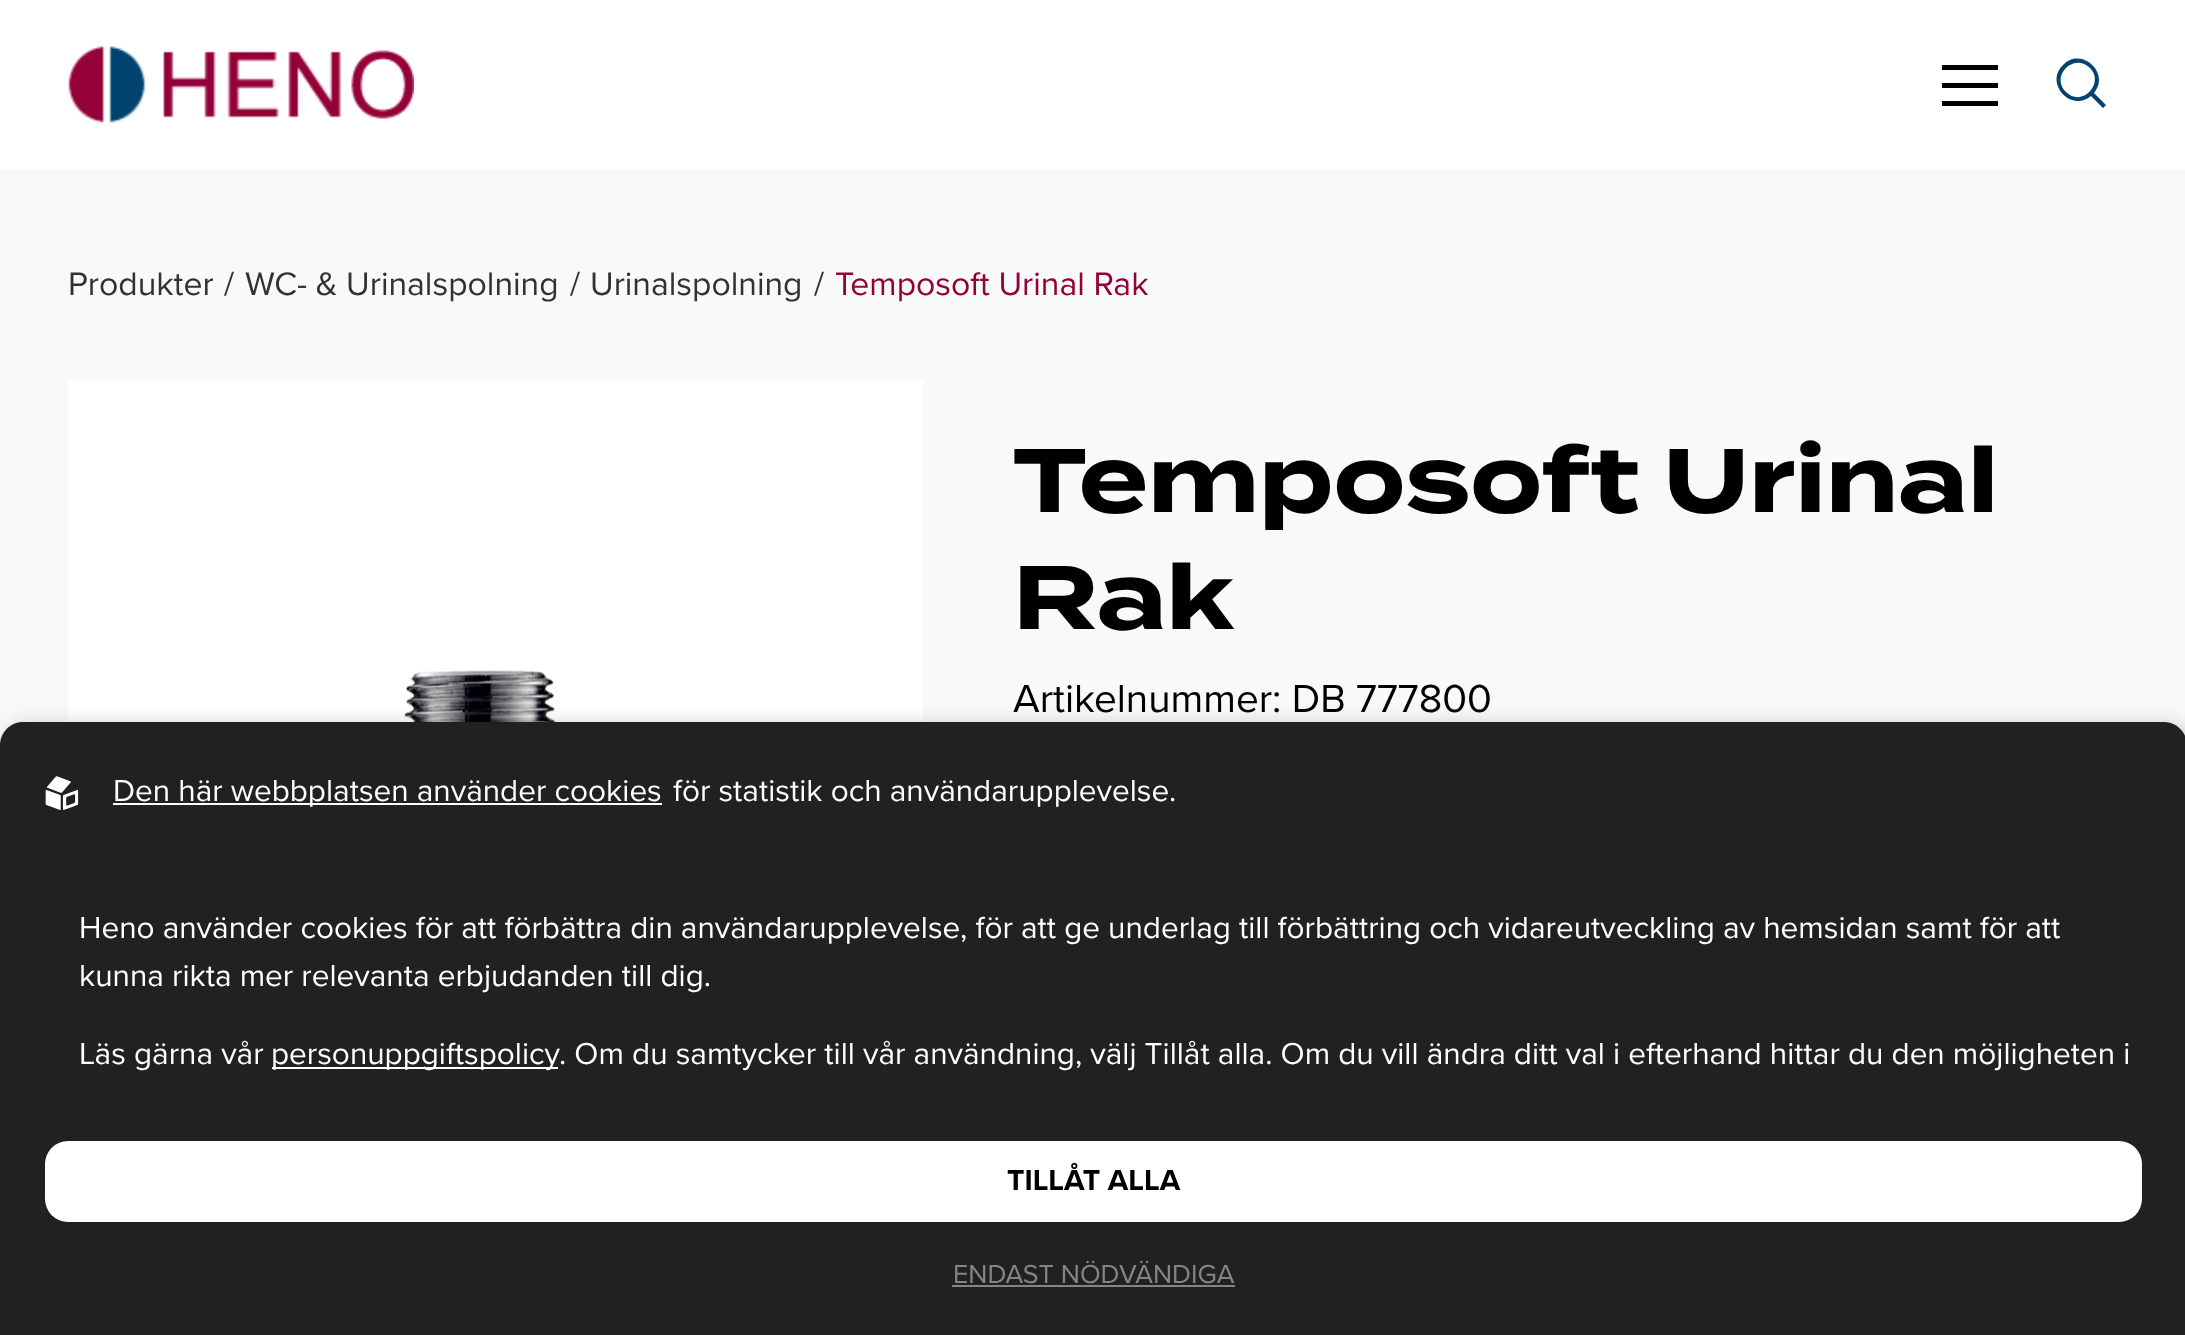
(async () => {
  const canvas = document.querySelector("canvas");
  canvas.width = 2185;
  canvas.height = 1335;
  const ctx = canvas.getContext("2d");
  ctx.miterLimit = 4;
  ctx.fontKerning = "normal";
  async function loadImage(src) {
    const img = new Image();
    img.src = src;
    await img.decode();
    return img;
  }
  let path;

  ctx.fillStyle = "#ffffff";
  ctx.fillRect(0, 0, 2185, 1335);
  ctx.drawImage(await loadImage("img/1.png"), 68, 46, 346, 77);
  for (const [x, y, w, h, color] of [
    [1942, 65, 56, 5, "#000000"],
    [1942, 83, 56, 5, "#000000"],
    [1942, 101, 56, 5, "#000000"],
  ]) {
    ctx.fillStyle = color;
    ctx.fillRect(x, y, w, h);
  }
  ctx.fillStyle = "#014370";
  path = new Path2D("M2063 65C2081 46 2111 73 2094 93L2106 105L2103 108L2091 96C2071 113 2044 83 2063 65ZM2090 68C2074 52 2050 76 2066 92C2082 108 2105 83 2090 68Z");
  ctx.fill(path);
  ctx.fillStyle = "#f8f9f9";
  ctx.fillRect(0, 169, 2185, 576);
  ctx.fillStyle = "#ffffff";
  ctx.fillRect(68, 380, 855, 342);
  ctx.drawImage(await loadImage("img/2.png"), 404, 670, 152, 52);
  ctx.fillStyle = "rgba(0, 0, 0, 0.25)";
  ctx.filter = "blur(11px)";
  ctx.beginPath();
  ctx.roundRect(5, 727, 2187, 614, 23);
  ctx.fill();
  ctx.filter = "none";
  ctx.fillStyle = "#212121";
  path = new Path2D("M23 722H2164C2176.5 722 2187 732.5 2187 745V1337H0V745C0 732.5 10.5 722 23 722Z");
  ctx.fill(path);
  ctx.drawImage(await loadImage("img/3.png"), 45, 776, 34, 34);
  ctx.fillStyle = "#ffffff";
  ctx.fillRect(113, 803, 549, 2);
  ctx.fillRect(272, 1067, 286, 2);
  ctx.beginPath();
  ctx.roundRect(45, 1141, 2097, 81, 23);
  ctx.fill();
  ctx.fillStyle = "#858585";
  ctx.fillRect(952, 1285, 283, 2);
  ctx.font = "33.75px Proxima Nova";
  ctx.fillStyle = "#323232";
  for (const [text, x, y] of [
    ["Produkter", 68, 295],
    ["/", 224, 295],
    ["WC- & Urinalspolning", 245, 295],
    ["/", 570, 295],
    ["Urinalspolning", 590, 295],
    ["/", 814, 295],
  ]) {
    ctx.fillText(text, x, y);
  }
  ctx.fillStyle = "#940138";
  ctx.fillText("Temposoft Urinal Rak", 835, 295);
  ctx.font = "bold 90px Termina";
  ctx.fillStyle = "#000000";
  ctx.fillText("Temposoft Urinal", 1013, 512);
  ctx.fillText("Rak", 1013, 629);
  ctx.font = "40.5px Proxima Nova";
  ctx.fillText("Artikelnummer: DB 777800", 1013, 712);
  ctx.font = "31.5px Proxima Nova";
  ctx.fillStyle = "#ffffff";
  for (const [text, x, y] of [
    ["Den här webbplatsen använder cookies", 113, 801],
    ["för statistik och användarupplevelse.", 673, 801],
    ["Heno använder cookies för att förbättra din användarupplevelse, för att ge underlag till förbättring och vidareutveckling av hemsidan samt för att", 79, 938],
    ["kunna rikta mer relevanta erbjudanden till dig.", 79, 986],
    ["Läs gärna vår", 79, 1064],
    ["personuppgiftspolicy", 271, 1064],
    [". Om du samtycker till vår användning, välj Tillåt alla. Om du vill ändra ditt val i efterhand hittar du den möjligheten i", 559, 1064],
  ]) {
    ctx.fillText(text, x, y);
  }
  ctx.font = "bold 30px Proxima Nova";
  ctx.fillStyle = "#000000";
  ctx.fillText("TILLÅT ALLA", 1007, 1190);
  ctx.font = "27px Proxima Nova";
  ctx.fillStyle = "#858585";
  ctx.fillText("ENDAST NÖDVÄNDIGA", 953, 1283);
})();
